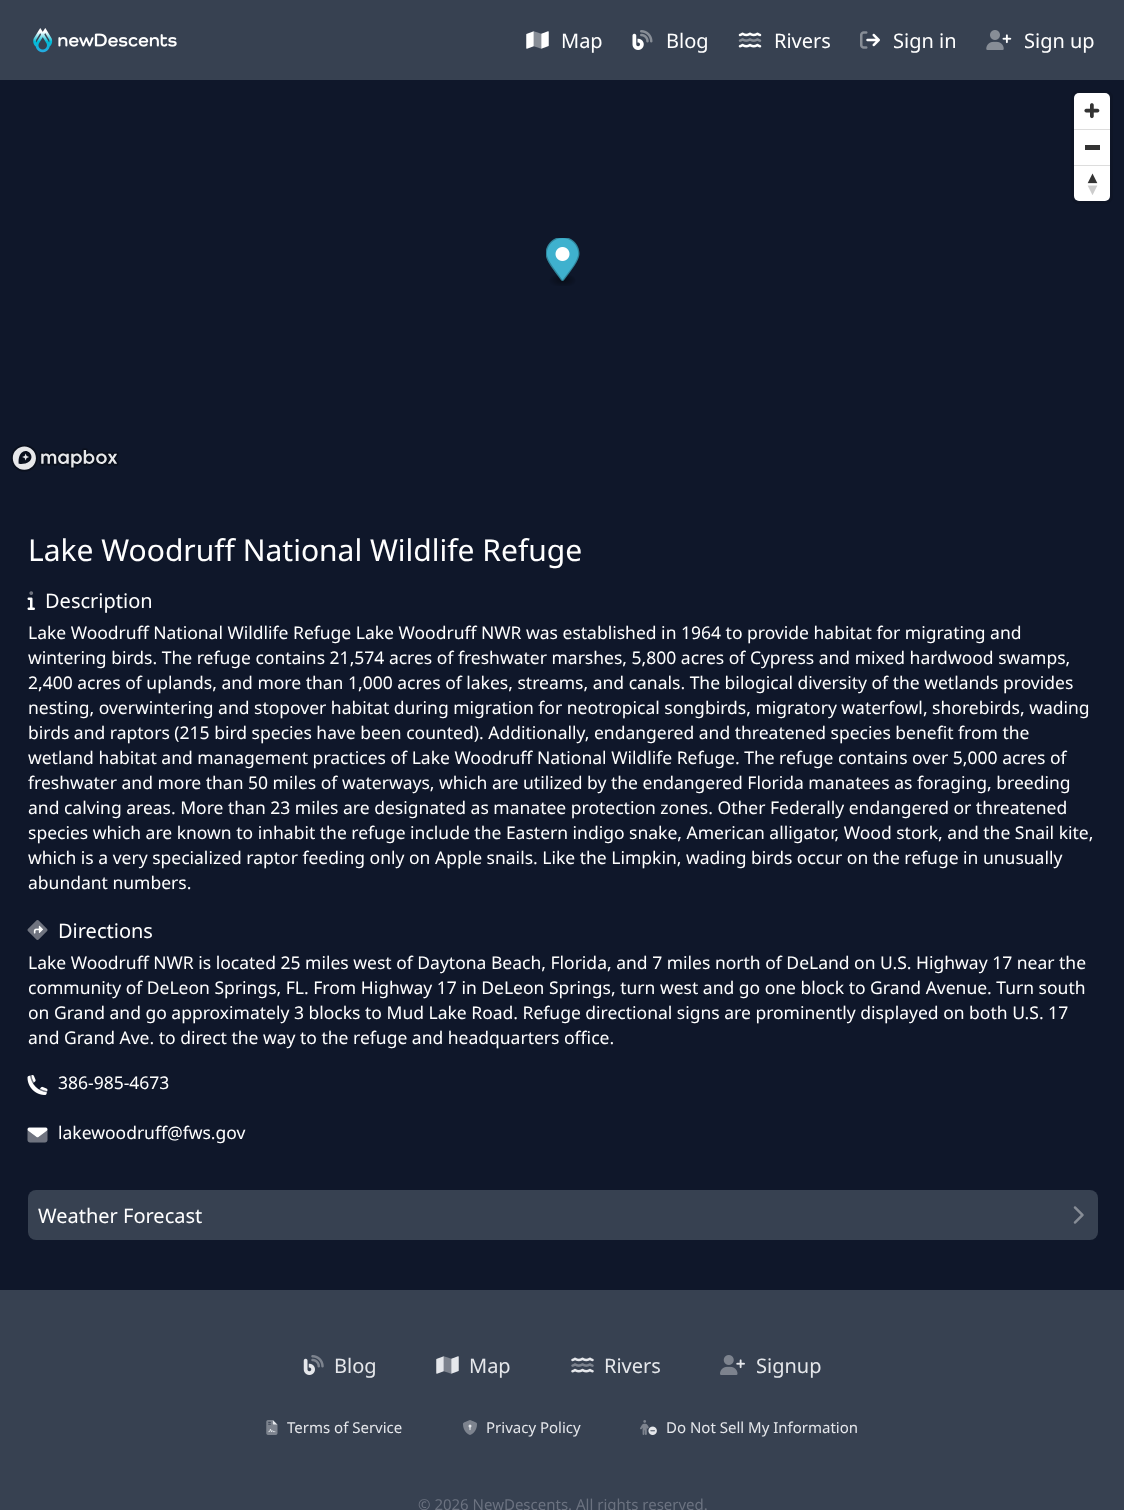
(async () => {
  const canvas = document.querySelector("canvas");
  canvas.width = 1124;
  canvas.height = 1510;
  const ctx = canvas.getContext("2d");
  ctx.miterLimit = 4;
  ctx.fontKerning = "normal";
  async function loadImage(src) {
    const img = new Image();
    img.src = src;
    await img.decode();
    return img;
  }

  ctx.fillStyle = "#0f172a";
  ctx.fillRect(0, 0, 1124, 1510);
  ctx.fillStyle = "#374151";
  ctx.fillRect(0, 0, 1124, 80);
  ctx.drawImage(await loadImage("img/1.png"), 33, 28, 144, 25);
  ctx.drawImage(await loadImage("img/2.png"), 526, 31, 23, 18);
  ctx.drawImage(await loadImage("img/3.png"), 632, 30, 21, 20);
  ctx.drawImage(await loadImage("img/4.png"), 738, 32, 24, 16);
  ctx.drawImage(await loadImage("img/5.png"), 860, 31, 20, 18);
  ctx.drawImage(await loadImage("img/6.png"), 986, 30, 26, 20);
  ctx.beginPath();
  ctx.roundRect(1072.5, 91.5, 39, 111, 6.5);
  ctx.strokeStyle = "#0e1526";
  ctx.lineWidth = 3;
  ctx.stroke();
  ctx.fillStyle = "#ffffff";
  ctx.beginPath();
  ctx.roundRect(1074, 93, 36, 108, 5);
  ctx.fill();
  ctx.drawImage(await loadImage("img/7.png"), 1084, 103, 16, 16);
  for (const [x, y, w, h, color] of [
    [1074, 129, 36, 1, "#dddddd"],
    [1085, 145, 15, 5, "#333333"],
    [1074, 165, 36, 1, "#dddddd"],
  ]) {
    ctx.fillStyle = color;
    ctx.fillRect(x, y, w, h);
  }
  ctx.drawImage(await loadImage("img/8.png"), 1087, 173, 11, 22);
  ctx.drawImage(await loadImage("img/9.png"), 11, 445, 108, 27);
  ctx.drawImage(await loadImage("img/10.png"), 546, 238, 34, 48);
  ctx.drawImage(await loadImage("img/11.png"), 27, 591, 8, 19);
  ctx.drawImage(await loadImage("img/12.png"), 27, 920, 21, 20);
  ctx.drawImage(await loadImage("img/13.png"), 27, 1075, 21, 20);
  ctx.drawImage(await loadImage("img/14.png"), 27, 1127, 21, 16);
  ctx.fillStyle = "#374151";
  ctx.beginPath();
  ctx.roundRect(28, 1190, 1070, 50, 8);
  ctx.fill();
  ctx.drawImage(await loadImage("img/15.png"), 1073, 1206, 11, 18);
  ctx.fillRect(0, 1290, 1124, 220);
  ctx.drawImage(await loadImage("img/16.png"), 303, 1355, 21, 20);
  ctx.drawImage(await loadImage("img/17.png"), 436, 1356, 23, 18);
  ctx.drawImage(await loadImage("img/18.png"), 571, 1357, 23, 16);
  ctx.drawImage(await loadImage("img/19.png"), 720, 1355, 25, 20);
  ctx.drawImage(await loadImage("img/20.png"), 266, 1420, 12, 15);
  ctx.drawImage(await loadImage("img/21.png"), 463, 1420, 14, 15);
  ctx.drawImage(await loadImage("img/22.png"), 640, 1420, 17, 15);
  ctx.font = "20px Noto Sans";
  ctx.fillStyle = "#ffffff";
  for (const [text, x, y] of [
    ["Map", 561, 48],
    ["Blog", 666, 48],
    ["Rivers", 774, 48],
    ["Sign in", 893, 48],
    ["Sign up", 1024, 48],
  ]) {
    ctx.fillText(text, x, y);
  }
  ctx.font = "30px Noto Sans";
  ctx.fillText("Lake Woodruff National Wildlife Refuge", 28, 561);
  ctx.font = "20px Noto Sans";
  ctx.fillText("Description", 45, 608);
  ctx.font = "17.5px Noto Sans";
  for (const [text, x, y] of [
    ["Lake Woodruff National Wildlife Refuge Lake Woodruff NWR was established in 1964 to provide habitat for migrating and", 28, 639],
    ["wintering birds. The refuge contains 21,574 acres of freshwater marshes, 5,800 acres of Cypress and mixed hardwood swamps,", 28, 664],
    ["2,400 acres of uplands, and more than 1,000 acres of lakes, streams, and canals. The bilogical diversity of the wetlands provides", 28, 689],
    ["nesting, overwintering and stopover habitat during migration for neotropical songbirds, migratory waterfowl, shorebirds, wading", 28, 714],
    ["birds and raptors (215 bird species have been counted). Additionally, endangered and threatened species benefit from the", 28, 739],
    ["wetland habitat and management practices of Lake Woodruff National Wildlife Refuge. The refuge contains over 5,000 acres of", 28, 764],
    ["freshwater and more than 50 miles of waterways, which are utilized by the endangered Florida manatees as foraging, breeding", 28, 789],
    ["and calving areas. More than 23 miles are designated as manatee protection zones. Other Federally endangered or threatened", 28, 814],
    ["species which are known to inhabit the refuge include the Eastern indigo snake, American alligator, Wood stork, and the Snail kite,", 28, 839],
    ["which is a very specialized raptor feeding only on Apple snails. Like the Limpkin, wading birds occur on the refuge in unusually", 28, 864],
    ["abundant numbers.", 28, 889],
  ]) {
    ctx.fillText(text, x, y);
  }
  ctx.font = "20px Noto Sans";
  ctx.fillText("Directions", 58, 938);
  ctx.font = "17.5px Noto Sans";
  for (const [text, x, y] of [
    ["Lake Woodruff NWR is located 25 miles west of Daytona Beach, Florida, and 7 miles north of DeLand on U.S. Highway 17 near the", 28, 969],
    ["community of DeLeon Springs, FL. From Highway 17 in DeLeon Springs, turn west and go one block to Grand Avenue. Turn south", 28, 994],
    ["on Grand and go approximately 3 blocks to Mud Lake Road. Refuge directional signs are prominently displayed on both U.S. 17", 28, 1019],
    ["and Grand Ave. to direct the way to the refuge and headquarters office.", 28, 1044],
    ["386-985-4673", 58, 1089],
    ["lakewoodruff@fws.gov", 58, 1139],
  ]) {
    ctx.fillText(text, x, y);
  }
  ctx.font = "20px Noto Sans";
  ctx.fillText("Weather Forecast", 38, 1223);
  ctx.fillStyle = "#e5e7eb";
  for (const [text, x, y] of [
    ["Blog", 334, 1373],
    ["Map", 469, 1373],
    ["Rivers", 604, 1373],
    ["Signup", 756, 1373],
  ]) {
    ctx.fillText(text, x, y);
  }
  ctx.font = "15px Noto Sans";
  for (const [text, x, y] of [
    ["Terms of Service", 287, 1433],
    ["Privacy Policy", 486, 1433],
    ["Do Not Sell My Information", 666, 1433],
  ]) {
    ctx.fillText(text, x, y);
  }
  ctx.fillStyle = "#6b7280";
  ctx.fillText("© 2026 NewDescents. All rights reserved.", 418, 1510);
})();
